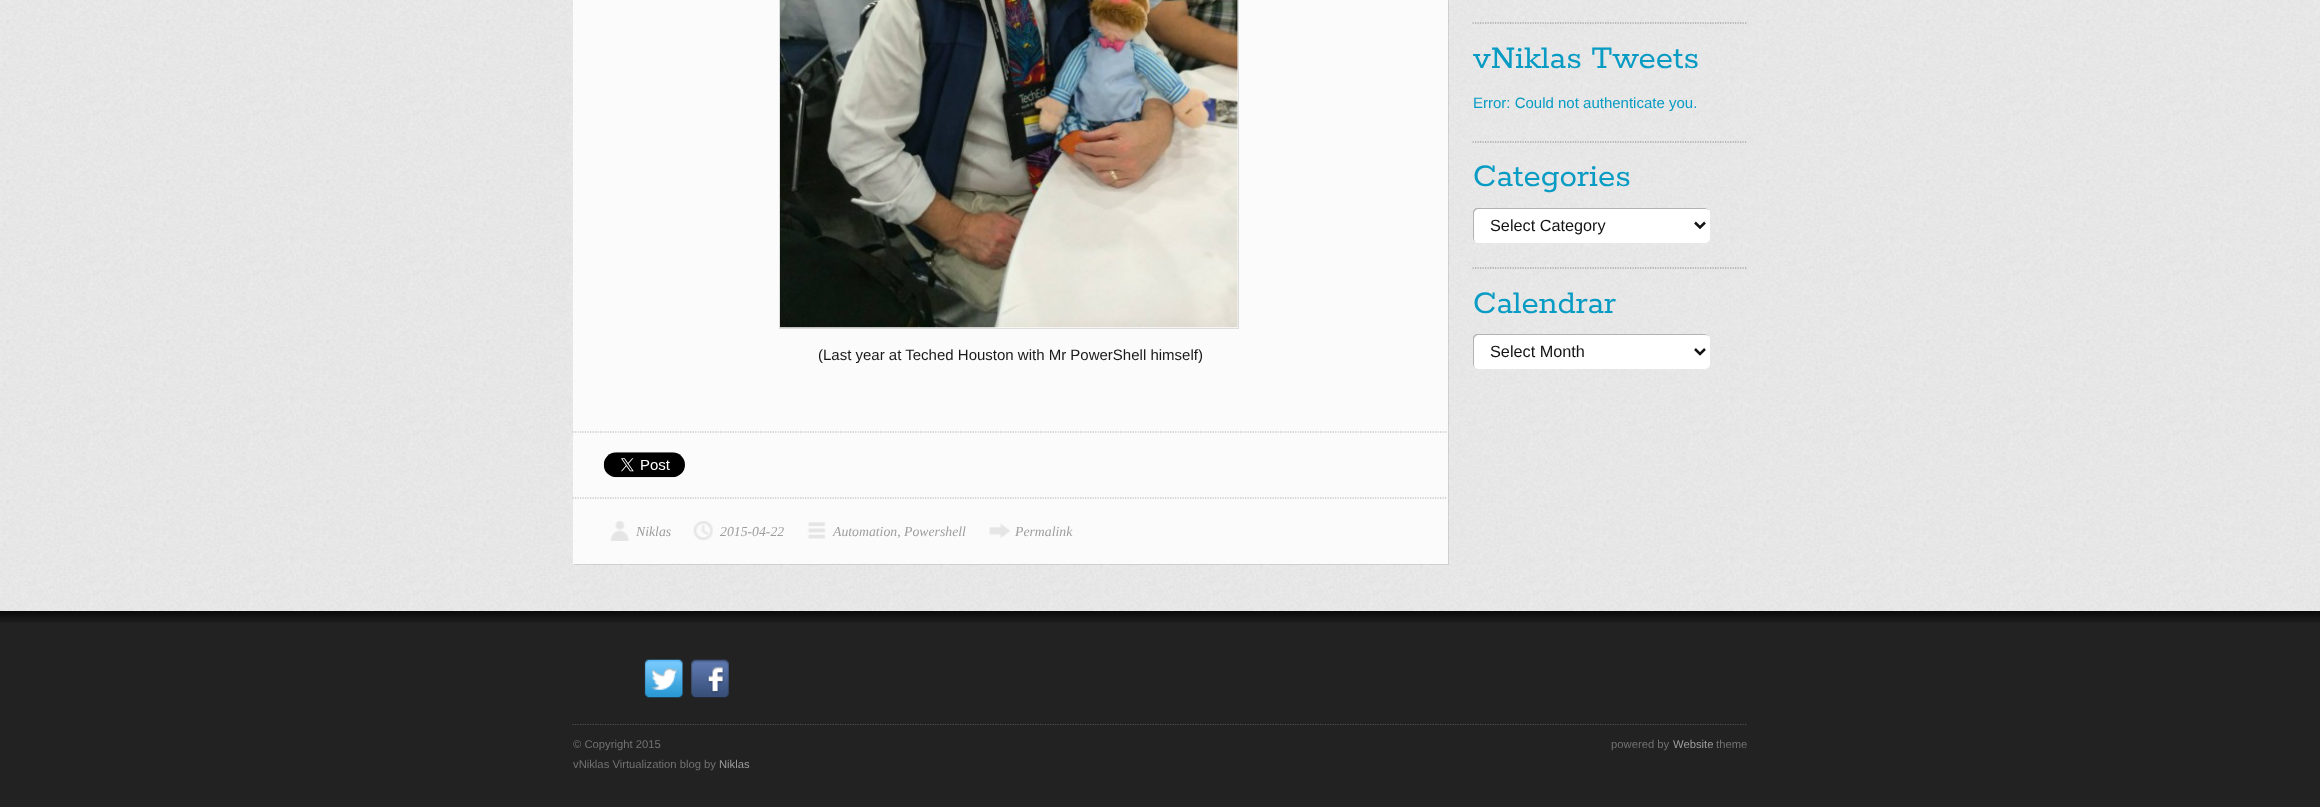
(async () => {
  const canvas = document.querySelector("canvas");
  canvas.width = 2320;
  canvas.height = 807;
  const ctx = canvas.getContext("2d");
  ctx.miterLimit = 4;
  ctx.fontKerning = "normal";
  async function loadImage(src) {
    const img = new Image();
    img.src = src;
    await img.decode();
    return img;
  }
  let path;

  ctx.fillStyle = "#222222";
  ctx.fillRect(0, 0, 2320, 807);
  ctx.drawImage(await loadImage("img/1.png"), 0, 0, 2320, 611);
  path = new Path2D("M1472.5 23H1747.5");
  ctx.strokeStyle = "#8a8a8a";
  ctx.lineWidth = 1.2;
  ctx.setLineDash([1.25, 1.25]);
  ctx.stroke(path);
  path = new Path2D("M1472.5 142H1747.5");
  ctx.stroke(path);
  ctx.fillStyle = "#ffffff";
  ctx.beginPath();
  ctx.roundRect(1473, 208, 237, 35, 5);
  ctx.fill();
  ctx.fillStyle = "rgba(0, 0, 0, 0.3)";
  path = new Path2D("M1479 209H1706L1709 210C1708 209 1706 208 1705 208H1478C1475 208 1473 210 1473 213V238C1473 239 1474 241 1475 242L1474 239V214C1474 211 1476 209 1479 209Z");
  ctx.fill(path);
  path = new Path2D("M1695 222.5L1700 227.5L1705 222.5");
  ctx.strokeStyle = "#131313";
  ctx.lineWidth = 2.5;
  ctx.setLineDash([]);
  ctx.stroke(path);
  path = new Path2D("M1472.5 268H1747.5");
  ctx.strokeStyle = "#8a8a8a";
  ctx.lineWidth = 1.2;
  ctx.setLineDash([1.25, 1.25]);
  ctx.stroke(path);
  ctx.fillStyle = "#ffffff";
  ctx.beginPath();
  ctx.roundRect(1473, 334, 237, 35, 5);
  ctx.fill();
  ctx.fillStyle = "rgba(0, 0, 0, 0.3)";
  path = new Path2D("M1479 335H1706L1709 336C1708 335 1706 334 1705 334H1478C1475 334 1473 336 1473 339V364C1473 365 1474 367 1475 368L1474 365V340C1474 337 1476 335 1479 335Z");
  ctx.fill(path);
  path = new Path2D("M1695 349L1700 354L1705 349");
  ctx.strokeStyle = "#131313";
  ctx.lineWidth = 2.5;
  ctx.setLineDash([]);
  ctx.stroke(path);
  ctx.fillStyle = "rgba(0, 0, 0, 0.1)";
  ctx.filter = "blur(0.5px)";
  ctx.beginPath();
  ctx.rect(574, -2, 875, 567);
  ctx.fill();
  ctx.filter = "none";
  ctx.fillStyle = "#fbfbfb";
  ctx.fillRect(573, 0, 875, 564);
  ctx.strokeStyle = "#dcdcdc";
  ctx.lineWidth = 1;
  ctx.strokeRect(779.5, -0.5, 459, 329);
  ctx.drawImage(await loadImage("img/2.png"), 780, 0, 458, 328);
  path = new Path2D("M572.5 432H1447.5");
  ctx.strokeStyle = "#b2b2b2";
  ctx.lineWidth = 1.2;
  ctx.setLineDash([1.25, 1.25]);
  ctx.stroke(path);
  ctx.drawImage(await loadImage("img/3.png"), 603, 452, 82, 26);
  path = new Path2D("M572.5 498H1447.5");
  ctx.stroke(path);
  ctx.drawImage(await loadImage("img/4.png"), 610, 521, 19, 20);
  ctx.drawImage(await loadImage("img/5.png"), 693, 521, 20, 20);
  ctx.drawImage(await loadImage("img/6.png"), 807, 522, 19, 17);
  ctx.drawImage(await loadImage("img/7.png"), 989, 523, 21, 15);
  ctx.drawImage(await loadImage("img/8.png"), 0, 611, 2320, 12);
  ctx.drawImage(await loadImage("img/9.png"), 644, 659, 39, 39);
  ctx.drawImage(await loadImage("img/10.png"), 691, 659, 38, 39);
  path = new Path2D("M572.5 724.5H1747.5");
  ctx.strokeStyle = "#505050";
  ctx.stroke(path);
  ctx.font = "35px Rokkitt";
  ctx.fillStyle = "#089bc3";
  ctx.fillText("vNiklas Tweets", 1473, 68);
  ctx.font = "15px Liberation Sans";
  ctx.fillText("Error: Could not authenticate you.", 1473, 108);
  ctx.font = "35px Rokkitt";
  ctx.fillText("Categories", 1473, 186);
  ctx.font = "16.25px Liberation Sans";
  ctx.fillStyle = "#131313";
  ctx.fillText("Select Category", 1490, 231);
  ctx.font = "35px Rokkitt";
  ctx.fillStyle = "#089bc3";
  ctx.fillText("Calendrar", 1473, 313);
  ctx.font = "16.25px Liberation Sans";
  ctx.fillStyle = "#131313";
  ctx.fillText("Select Month", 1490, 357);
  ctx.font = "15px Liberation Sans";
  ctx.fillStyle = "#191919";
  ctx.fillText("(Last year at Teched Houston with Mr PowerShell himself)", 818, 360);
  ctx.font = "italic 13.75px Liberation Serif";
  ctx.fillStyle = "#9d9d9d";
  for (const [text, x, y] of [
    ["Niklas", 636, 536],
    ["2015-04-22", 720, 536],
    ["Automation, Powershell", 833, 536],
    ["Permalink", 1015, 536],
  ]) {
    ctx.fillText(text, x, y);
  }
  ctx.font = "11.25px Liberation Sans";
  ctx.fillStyle = "#727272";
  ctx.fillText("© Copyright 2015", 573, 748);
  ctx.fillText("vNiklas Virtualization blog by", 573, 768);
  ctx.fillStyle = "#9d9d9d";
  ctx.fillText("Niklas", 719, 768);
  ctx.fillStyle = "#727272";
  ctx.fillText("powered by", 1611, 748);
  ctx.fillStyle = "#9d9d9d";
  ctx.fillText("Website", 1673, 748);
  ctx.fillStyle = "#727272";
  ctx.fillText("theme", 1716, 748);
})();
